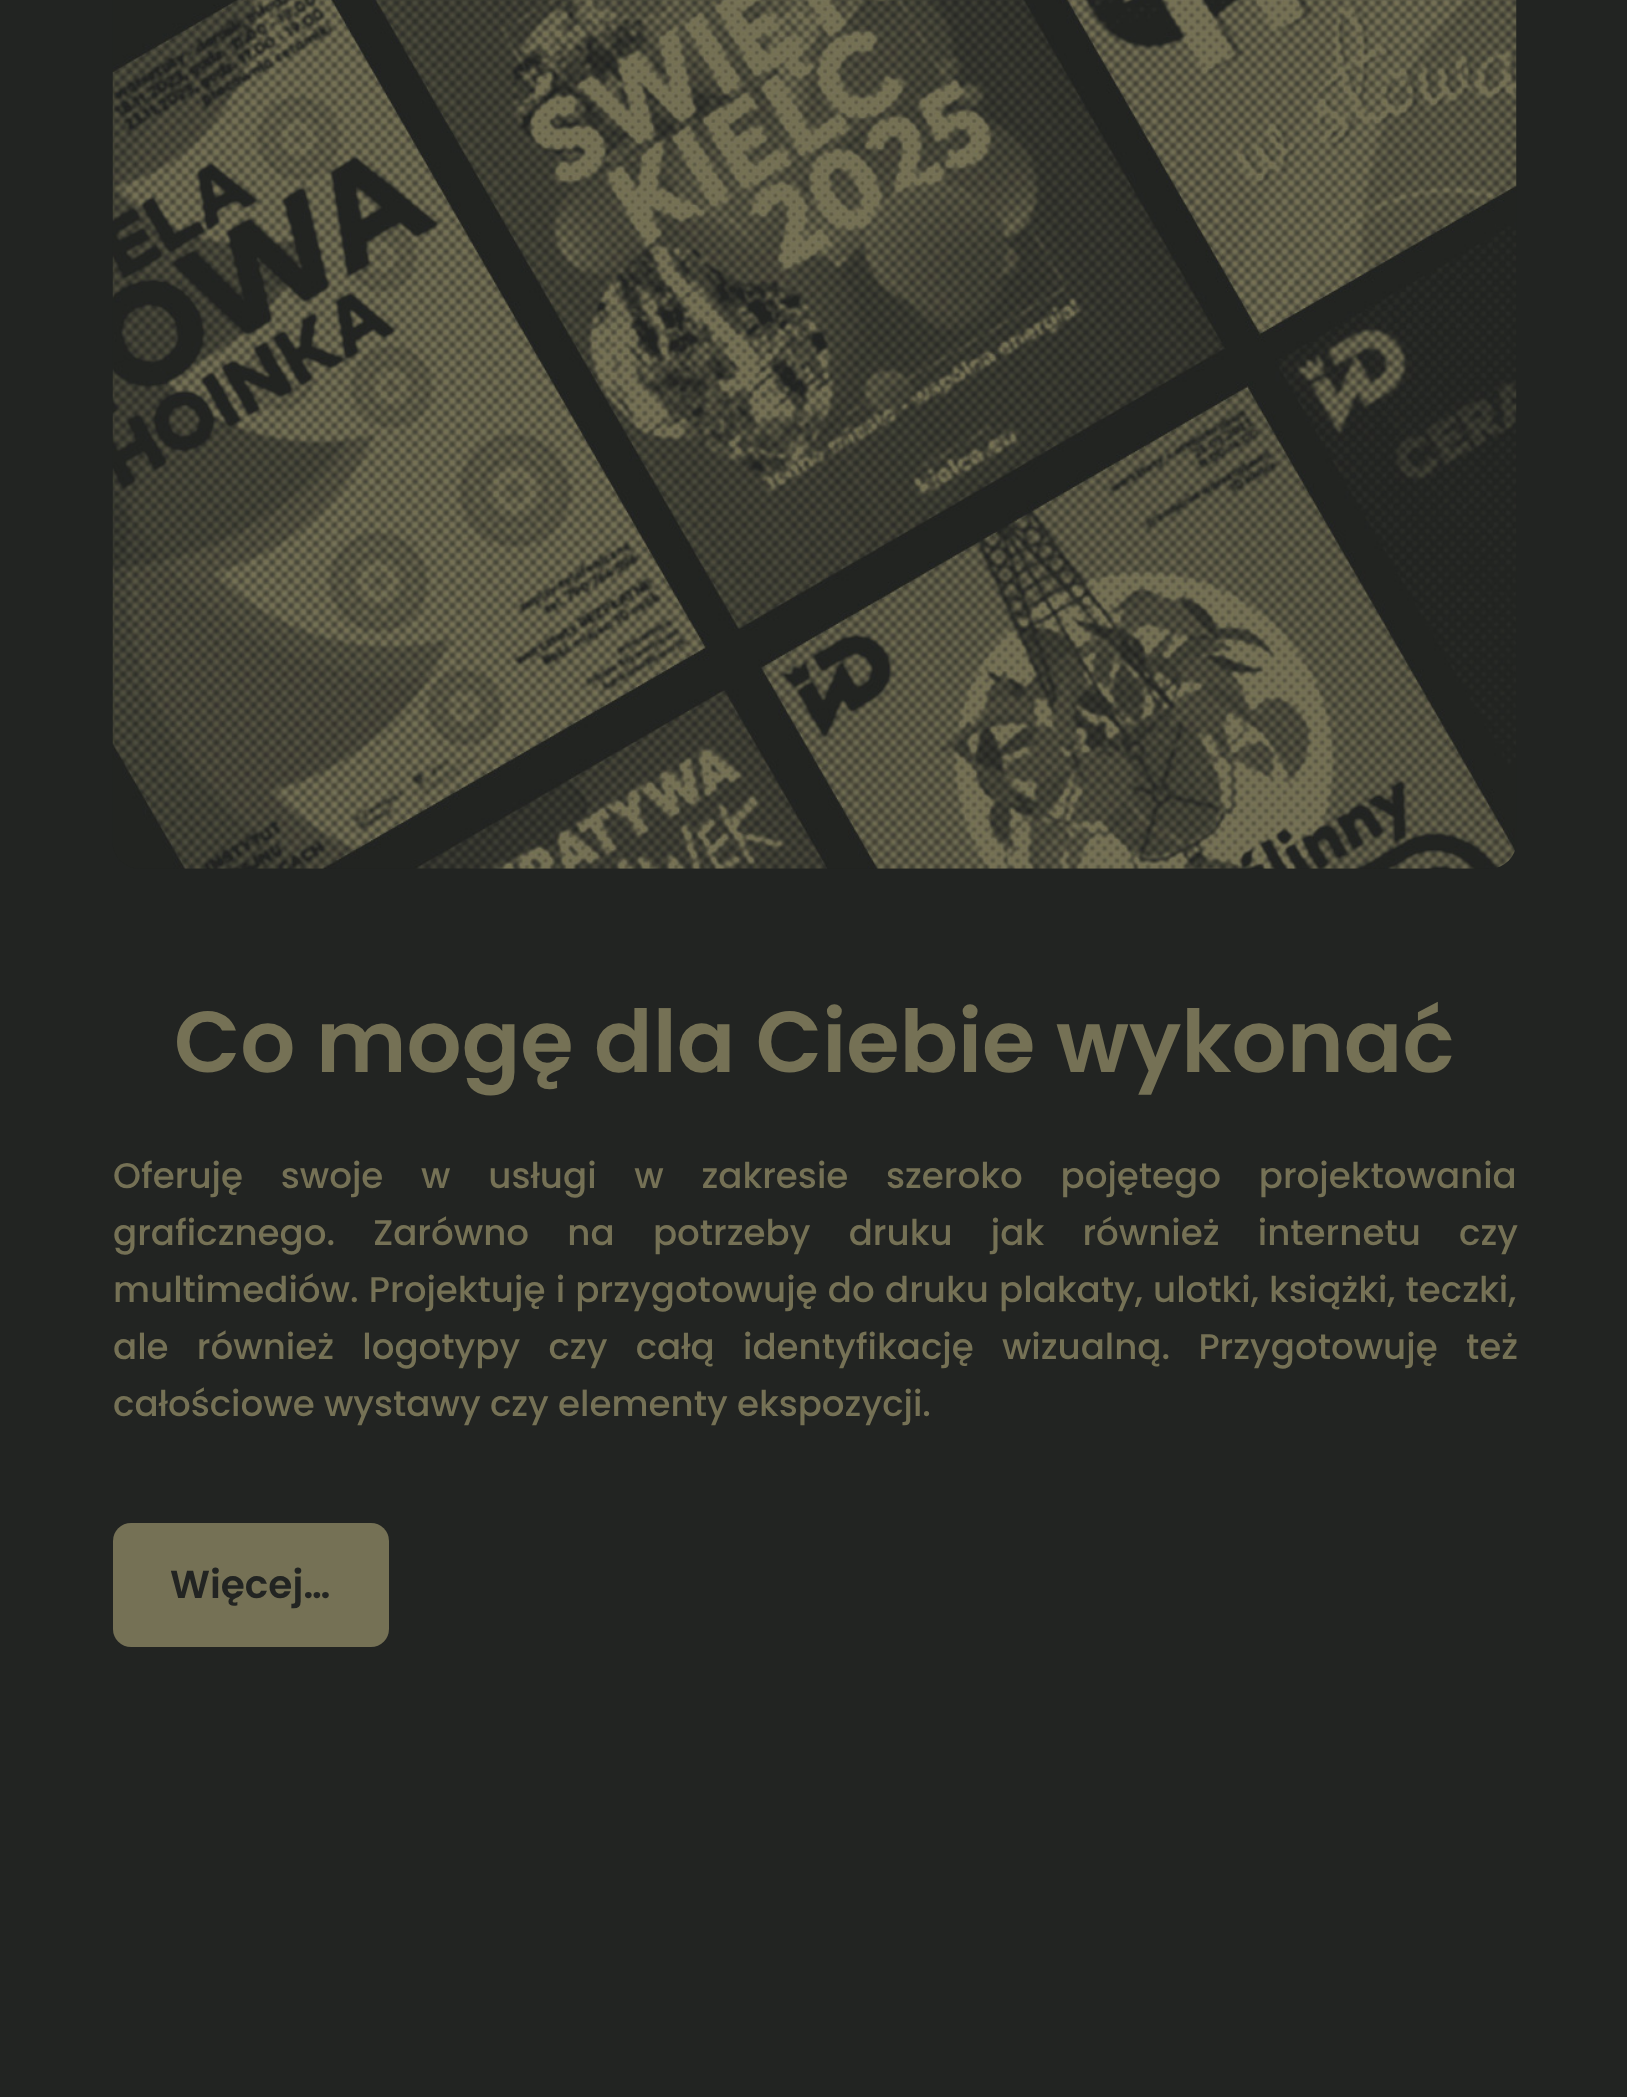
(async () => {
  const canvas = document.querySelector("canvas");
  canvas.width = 1627;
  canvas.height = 2097;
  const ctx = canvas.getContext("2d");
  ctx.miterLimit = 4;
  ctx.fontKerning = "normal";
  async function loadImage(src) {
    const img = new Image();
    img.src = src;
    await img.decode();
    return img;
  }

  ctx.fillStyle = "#222422";
  ctx.fillRect(0, 0, 1627, 2097);
  ctx.drawImage(await loadImage("img/1.png"), 112, 0, 1405, 869);
  ctx.fillStyle = "#757155";
  ctx.beginPath();
  ctx.roundRect(113, 1523, 276, 124, 18);
  ctx.fill();
  ctx.font = "600 86.4px Poppins";
  ctx.fillText("Co mogę dla Ciebie wykonać", 174, 1072);
  ctx.wordSpacing = "28.5px";
  ctx.font = "500 35.65px Poppins";
  ctx.fillText("Oferuję swoje w usługi w zakresie szeroko pojętego projektowania", 113, 1188);
  ctx.wordSpacing = "29px";
  ctx.fillText("graficznego. Zarówno na potrzeby druku jak również internetu czy", 113, 1245);
  ctx.wordSpacing = "1px";
  ctx.fillText("multimediów. Projektuję i przygotowuję do druku plakaty, ulotki, książki, teczki,", 113, 1302);
  ctx.wordSpacing = "19px";
  ctx.fillText("ale również logotypy czy całą identyfikację wizualną. Przygotowuję też", 113, 1359);
  ctx.wordSpacing = "0px";
  ctx.fillText("całościowe wystawy czy elementy ekspozycji.", 113, 1416);
  ctx.font = "600 39px Poppins";
  ctx.fillStyle = "#222422";
  ctx.fillText("Więcej…", 170, 1598);
})();
